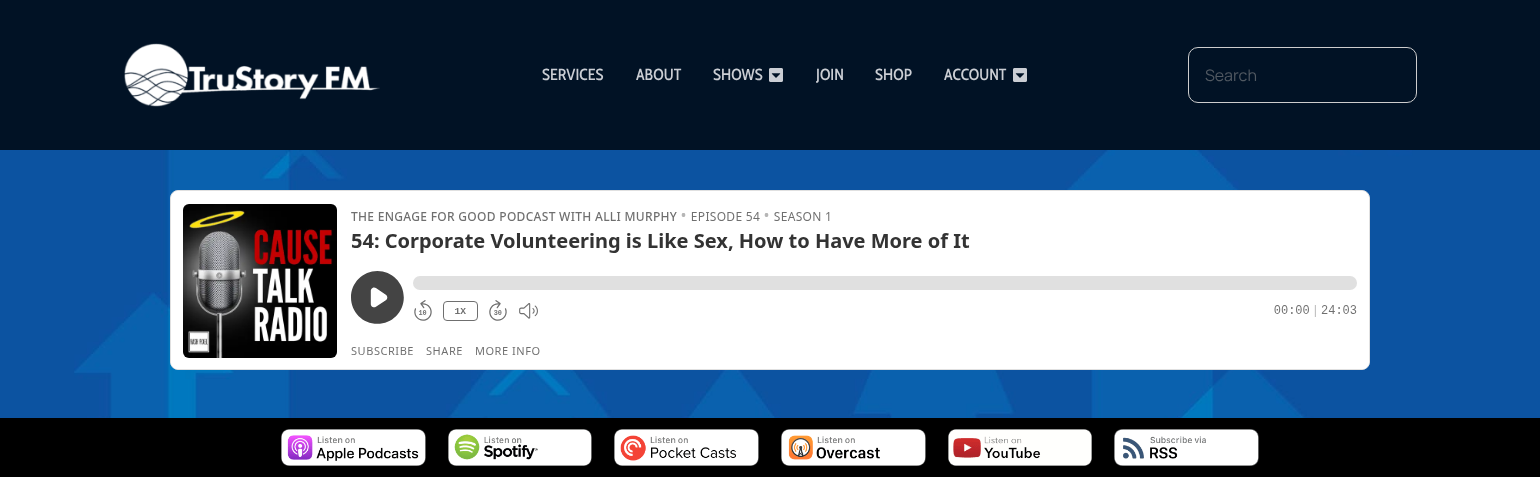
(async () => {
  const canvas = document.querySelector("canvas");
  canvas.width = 1540;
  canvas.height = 480;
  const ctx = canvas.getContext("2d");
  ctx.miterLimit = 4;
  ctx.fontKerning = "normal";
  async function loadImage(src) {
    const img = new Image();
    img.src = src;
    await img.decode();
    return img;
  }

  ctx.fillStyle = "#ffffff";
  ctx.fillRect(0, 0, 1540, 480);
  ctx.fillStyle = "#011225";
  ctx.fillRect(0, 0, 1540, 150);
  ctx.drawImage(await loadImage("img/1.png"), 124, 43, 256, 64);
  ctx.drawImage(await loadImage("img/2.png"), 769, 68, 14, 14);
  ctx.drawImage(await loadImage("img/2.png"), 1013, 68, 14, 14);
  ctx.beginPath();
  ctx.roundRect(1188.5, 47.5, 228, 55, 9.5);
  ctx.strokeStyle = "#cdcdcd";
  ctx.stroke();
  ctx.drawImage(await loadImage("img/3.png"), 0, 150, 1540, 268);
  ctx.drawImage(await loadImage("img/4.png"), 170, 190, 1200, 180);
  ctx.fillStyle = "#000000";
  ctx.fillRect(0, 418, 1540, 59);
  ctx.drawImage(await loadImage("img/5.png"), 281, 429, 145, 37);
  ctx.drawImage(await loadImage("img/6.png"), 448, 429, 144, 37);
  ctx.drawImage(await loadImage("img/7.png"), 614, 429, 145, 37);
  ctx.drawImage(await loadImage("img/8.png"), 781, 429, 145, 37);
  ctx.drawImage(await loadImage("img/9.png"), 948, 429, 144, 37);
  ctx.drawImage(await loadImage("img/10.png"), 1114, 429, 145, 37);
  ctx.font = "500 16px Cabin Condensed";
  ctx.fillStyle = "#cbced4";
  for (const [text, x, y] of [
    ["SERVICES", 542, 80],
    ["ABOUT", 636, 80],
    ["SHOWS", 713, 80],
    ["JOIN", 816, 80],
    ["SHOP", 875, 80],
    ["ACCOUNT", 944, 80],
  ]) {
    ctx.fillText(text, x, y);
  }
  ctx.font = "16px Manrope";
  ctx.fillStyle = "#515962";
  ctx.fillText("Search", 1205, 81);
})();
